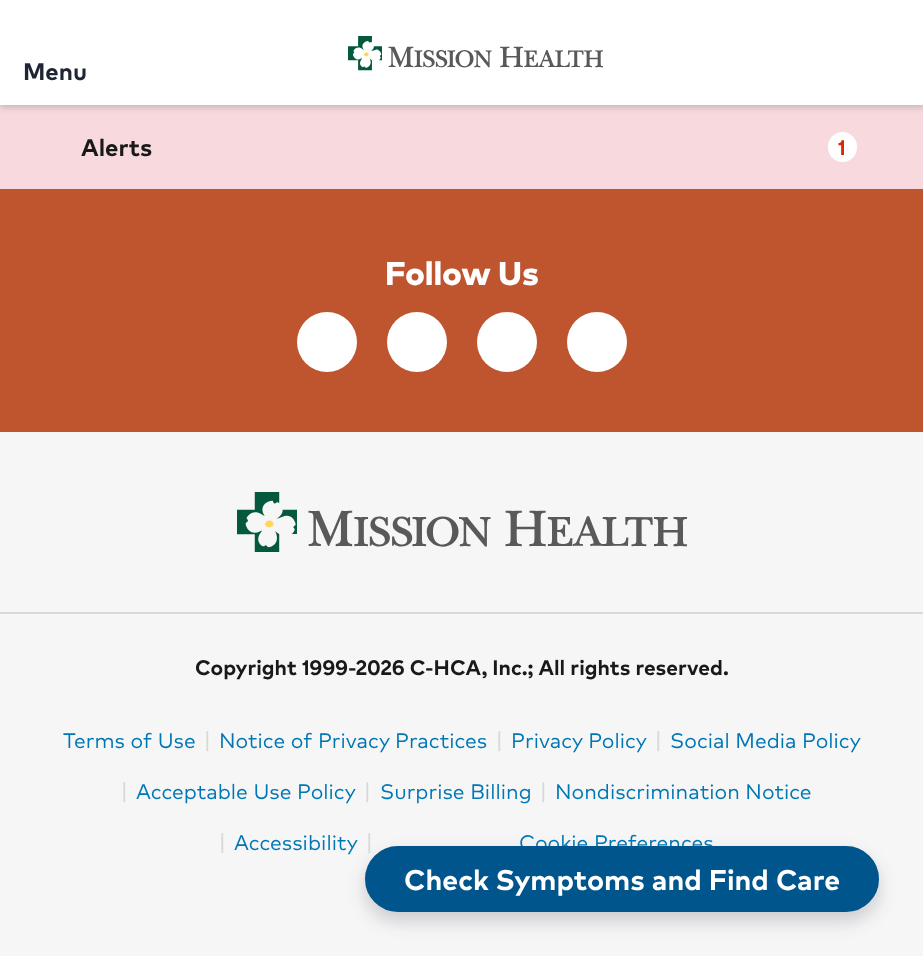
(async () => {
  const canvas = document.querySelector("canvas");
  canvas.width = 923;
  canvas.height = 956;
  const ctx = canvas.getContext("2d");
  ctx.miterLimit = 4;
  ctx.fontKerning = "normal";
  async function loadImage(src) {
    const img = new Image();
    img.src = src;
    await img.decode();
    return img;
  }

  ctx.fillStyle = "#f6f6f6";
  ctx.fillRect(0, 0, 923, 956);
  ctx.fillStyle = "#f8dade";
  ctx.fillRect(0, 105, 923, 84);
  ctx.fillStyle = "rgba(31, 37, 50, 0.2)";
  ctx.filter = "blur(3px)";
  ctx.beginPath();
  ctx.rect(0, 3, 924, 105);
  ctx.fill();
  ctx.filter = "none";
  ctx.fillStyle = "#ffffff";
  ctx.fillRect(0, 0, 923, 105);
  ctx.drawImage(await loadImage("img/1.png"), 348, 36, 255, 35);
  ctx.beginPath();
  ctx.roundRect(828, 132, 29, 30, 14.5);
  ctx.fill();
  ctx.fillStyle = "#be552e";
  ctx.fillRect(0, 189, 923, 243);
  ctx.fillStyle = "#ffffff";
  ctx.beginPath();
  ctx.arc(327, 342, 30, 0, Math.PI * 2);
  ctx.fill();
  ctx.beginPath();
  ctx.arc(417, 342, 30, 0, Math.PI * 2);
  ctx.fill();
  ctx.beginPath();
  ctx.arc(507, 342, 30, 0, Math.PI * 2);
  ctx.fill();
  ctx.beginPath();
  ctx.arc(597, 342, 30, 0, Math.PI * 2);
  ctx.fill();
  ctx.fillStyle = "#d9d9d6";
  ctx.fillRect(0, 612, 923, 2);
  ctx.drawImage(await loadImage("img/2.png"), 237, 492, 450, 60);
  ctx.fillStyle = "rgba(31, 37, 50, 0.2)";
  ctx.filter = "blur(9px)";
  ctx.beginPath();
  ctx.roundRect(365, 855, 514, 66, 33);
  ctx.fill();
  ctx.filter = "none";
  ctx.font = "bold 24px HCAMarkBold";
  ctx.fillStyle = "#1f2532";
  ctx.fillText("Menu", 23, 80);
  ctx.fillStyle = "#191919";
  ctx.fillText("Alerts", 81, 156);
  ctx.font = "bold 21px HCAMarkBold";
  ctx.fillStyle = "#df2500";
  ctx.fillText("1", 838, 155);
  ctx.font = "900 33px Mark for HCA";
  ctx.fillStyle = "#ffffff";
  ctx.fillText("Follow Us", 385, 285);
  ctx.font = "bold 21px HCAMarkBold";
  ctx.fillStyle = "#191919";
  ctx.fillText("Copyright 1999-2026 C-HCA, Inc.; All rights reserved.", 195, 675);
  ctx.font = "21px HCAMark";
  ctx.fillStyle = "#0077b5";
  ctx.fillText("Terms of Use", 63, 748);
  ctx.font = "24px HCAMark";
  ctx.fillStyle = "#d9d9d6";
  ctx.fillText("|", 203, 748);
  ctx.font = "21px HCAMark";
  ctx.fillStyle = "#0077b5";
  ctx.fillText("Notice of Privacy Practices", 219, 748);
  ctx.font = "24px HCAMark";
  ctx.fillStyle = "#d9d9d6";
  ctx.fillText("|", 495, 748);
  ctx.font = "21px HCAMark";
  ctx.fillStyle = "#0077b5";
  ctx.fillText("Privacy Policy", 511, 748);
  ctx.font = "24px HCAMark";
  ctx.fillStyle = "#d9d9d6";
  ctx.fillText("|", 654, 748);
  ctx.font = "21px HCAMark";
  ctx.fillStyle = "#0077b5";
  ctx.fillText("Social Media Policy", 670, 748);
  ctx.font = "24px HCAMark";
  ctx.fillStyle = "#d9d9d6";
  ctx.fillText("|", 120, 799);
  ctx.font = "21px HCAMark";
  ctx.fillStyle = "#0077b5";
  ctx.fillText("Acceptable Use Policy", 136, 799);
  ctx.font = "24px HCAMark";
  ctx.fillStyle = "#d9d9d6";
  ctx.fillText("|", 363, 799);
  ctx.font = "21px HCAMark";
  ctx.fillStyle = "#0077b5";
  ctx.fillText("Surprise Billing", 380, 799);
  ctx.font = "24px HCAMark";
  ctx.fillStyle = "#d9d9d6";
  ctx.fillText("|", 539, 799);
  ctx.font = "21px HCAMark";
  ctx.fillStyle = "#0077b5";
  ctx.fillText("Nondiscrimination Notice", 555, 799);
  ctx.font = "24px HCAMark";
  ctx.fillStyle = "#d9d9d6";
  ctx.fillText("|", 218, 850);
  ctx.font = "21px HCAMark";
  ctx.fillStyle = "#0077b5";
  ctx.fillText("Accessibility", 234, 850);
  ctx.font = "24px HCAMark";
  ctx.fillStyle = "#d9d9d6";
  ctx.fillText("|", 365, 850);
  ctx.font = "21px HCAMark";
  ctx.fillStyle = "#0077b5";
  ctx.fillText("Cookie Preferences", 519, 850);
  ctx.fillStyle = "#00558c";
  ctx.beginPath();
  ctx.roundRect(366.5, 847.5, 511, 63, 31.5);
  ctx.fill();
  ctx.strokeStyle = "#00558c";
  ctx.lineWidth = 3;
  ctx.stroke();
  ctx.font = "bold 28.5px HCAMarkBold";
  ctx.fillStyle = "#ffffff";
  ctx.fillText("Check Symptoms and Find Care", 404, 890);
})();
